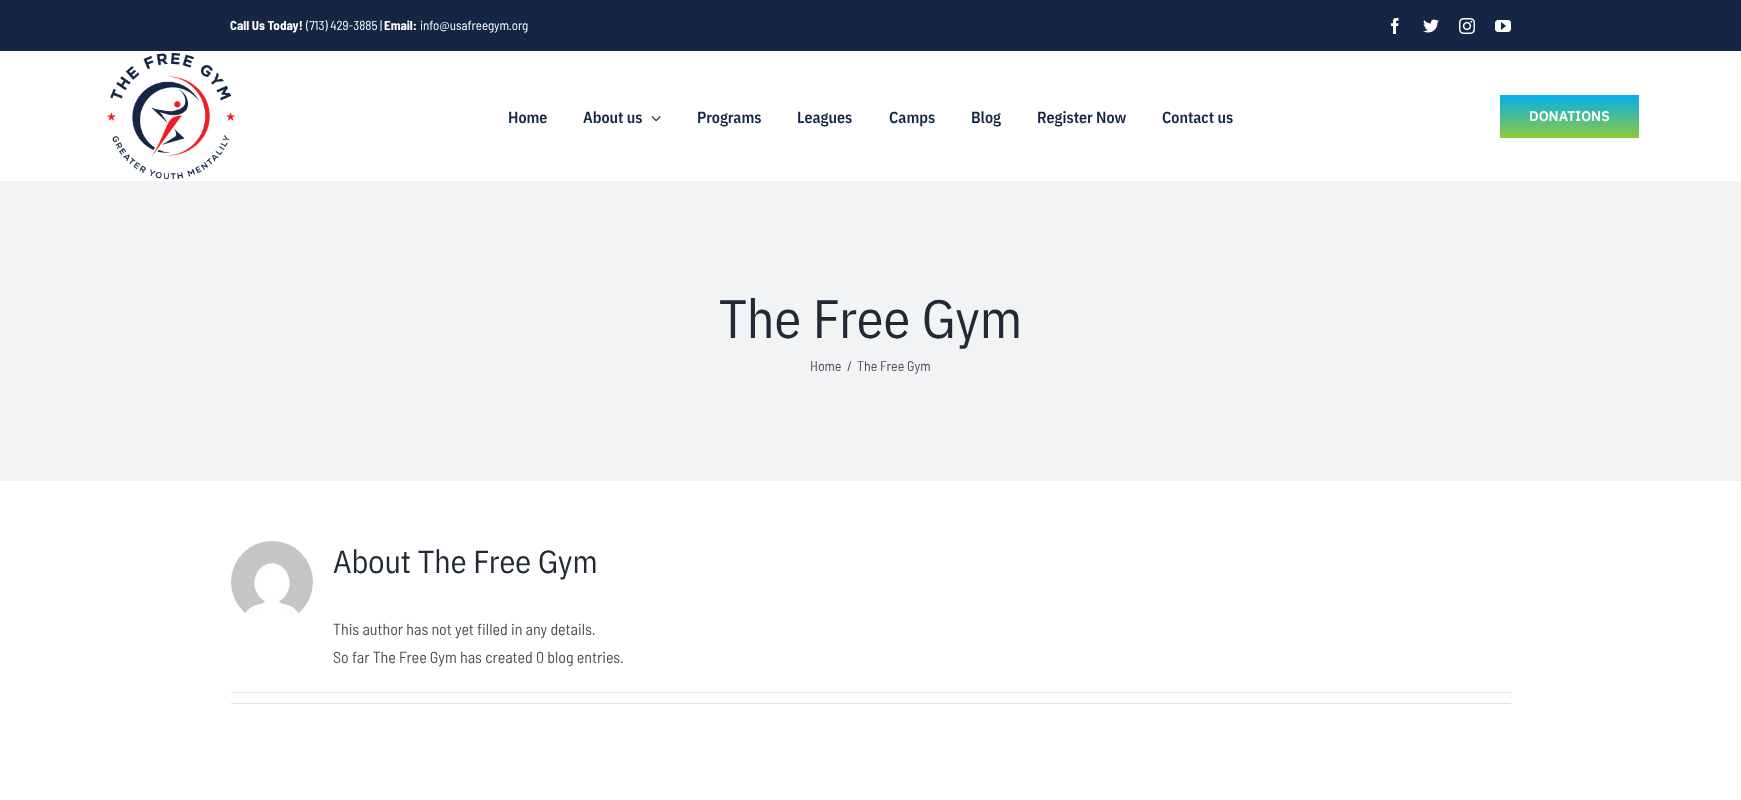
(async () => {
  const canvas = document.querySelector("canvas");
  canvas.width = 1741;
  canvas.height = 800;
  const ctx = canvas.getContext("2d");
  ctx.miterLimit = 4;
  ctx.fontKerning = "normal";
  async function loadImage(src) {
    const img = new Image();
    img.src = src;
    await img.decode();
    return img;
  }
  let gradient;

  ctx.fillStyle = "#ffffff";
  ctx.fillRect(0, 0, 1741, 800);
  ctx.fillStyle = "#152644";
  ctx.fillRect(0, 0, 1741, 51);
  ctx.drawImage(await loadImage("img/1.png"), 1391, 18, 8, 16);
  ctx.drawImage(await loadImage("img/2.png"), 1423, 19, 16, 14);
  ctx.drawImage(await loadImage("img/3.png"), 1459, 18, 16, 16);
  ctx.drawImage(await loadImage("img/4.png"), 1495, 20, 16, 12);
  ctx.drawImage(await loadImage("img/5.png"), 107, 52, 129, 128);
  ctx.drawImage(await loadImage("img/6.png"), 651, 116, 10, 6);
  gradient = ctx.createLinearGradient(1570, 138, 1570, 95);
  gradient.addColorStop(0, "#8ec93d");
  gradient.addColorStop(1, "#05afec");
  ctx.fillStyle = gradient;
  ctx.fillRect(1500, 95, 139, 43);
  ctx.fillStyle = "#f2f3f5";
  ctx.fillRect(0, 181, 1741, 300);
  ctx.drawImage(await loadImage("img/7.png"), 231, 541, 82, 72);
  ctx.fillStyle = "#e2e2e2";
  ctx.fillRect(231, 692, 1280, 1);
  ctx.fillRect(231, 703, 1280, 1);
  ctx.font = "bold 13px Barlow Semi Condensed";
  ctx.fillStyle = "#ffffff";
  ctx.fillText("Call Us Today!", 230, 30);
  ctx.font = "13px Barlow Semi Condensed";
  ctx.fillText("(713) 429-3885 |", 306, 30);
  ctx.font = "bold 13px Barlow Semi Condensed";
  ctx.fillText("Email:", 384, 30);
  ctx.font = "13px Barlow Semi Condensed";
  ctx.fillText("info@usafreegym.org", 420, 30);
  ctx.font = "600 16px IBM Plex Sans Condensed";
  ctx.fillStyle = "#152644";
  for (const [text, x, y] of [
    ["Home", 508, 123],
    ["About us", 583, 123],
    ["Programs", 697, 123],
    ["Leagues", 797, 123],
    ["Camps", 889, 123],
    ["Blog", 971, 123],
    ["Register Now", 1037, 123],
    ["Contact us", 1162, 123],
  ]) {
    ctx.fillText(text, x, y);
  }
  ctx.font = "600 14px IBM Plex Sans";
  ctx.fillStyle = "#ffffff";
  ctx.fillText("DONATIONS", 1529, 121);
  ctx.font = "54px IBM Plex Sans Condensed";
  ctx.fillStyle = "#212934";
  ctx.fillText("The Free Gym", 719, 338);
  ctx.font = "14px Barlow Semi Condensed";
  ctx.fillStyle = "#4a4e57";
  for (const [text, x, y] of [
    ["Home", 810, 371],
    ["/", 847, 371],
    ["The Free Gym", 857, 371],
  ]) {
    ctx.fillText(text, x, y);
  }
  ctx.font = "32px IBM Plex Sans Condensed";
  ctx.fillStyle = "#212934";
  ctx.fillText("About The Free Gym", 333, 573);
  ctx.font = "16px Barlow Semi Condensed";
  ctx.fillStyle = "#4a4e57";
  ctx.fillText("This author has not yet filled in any details.", 333, 635);
  ctx.fillText("So far The Free Gym has created 0 blog entries.", 333, 663);
})();
